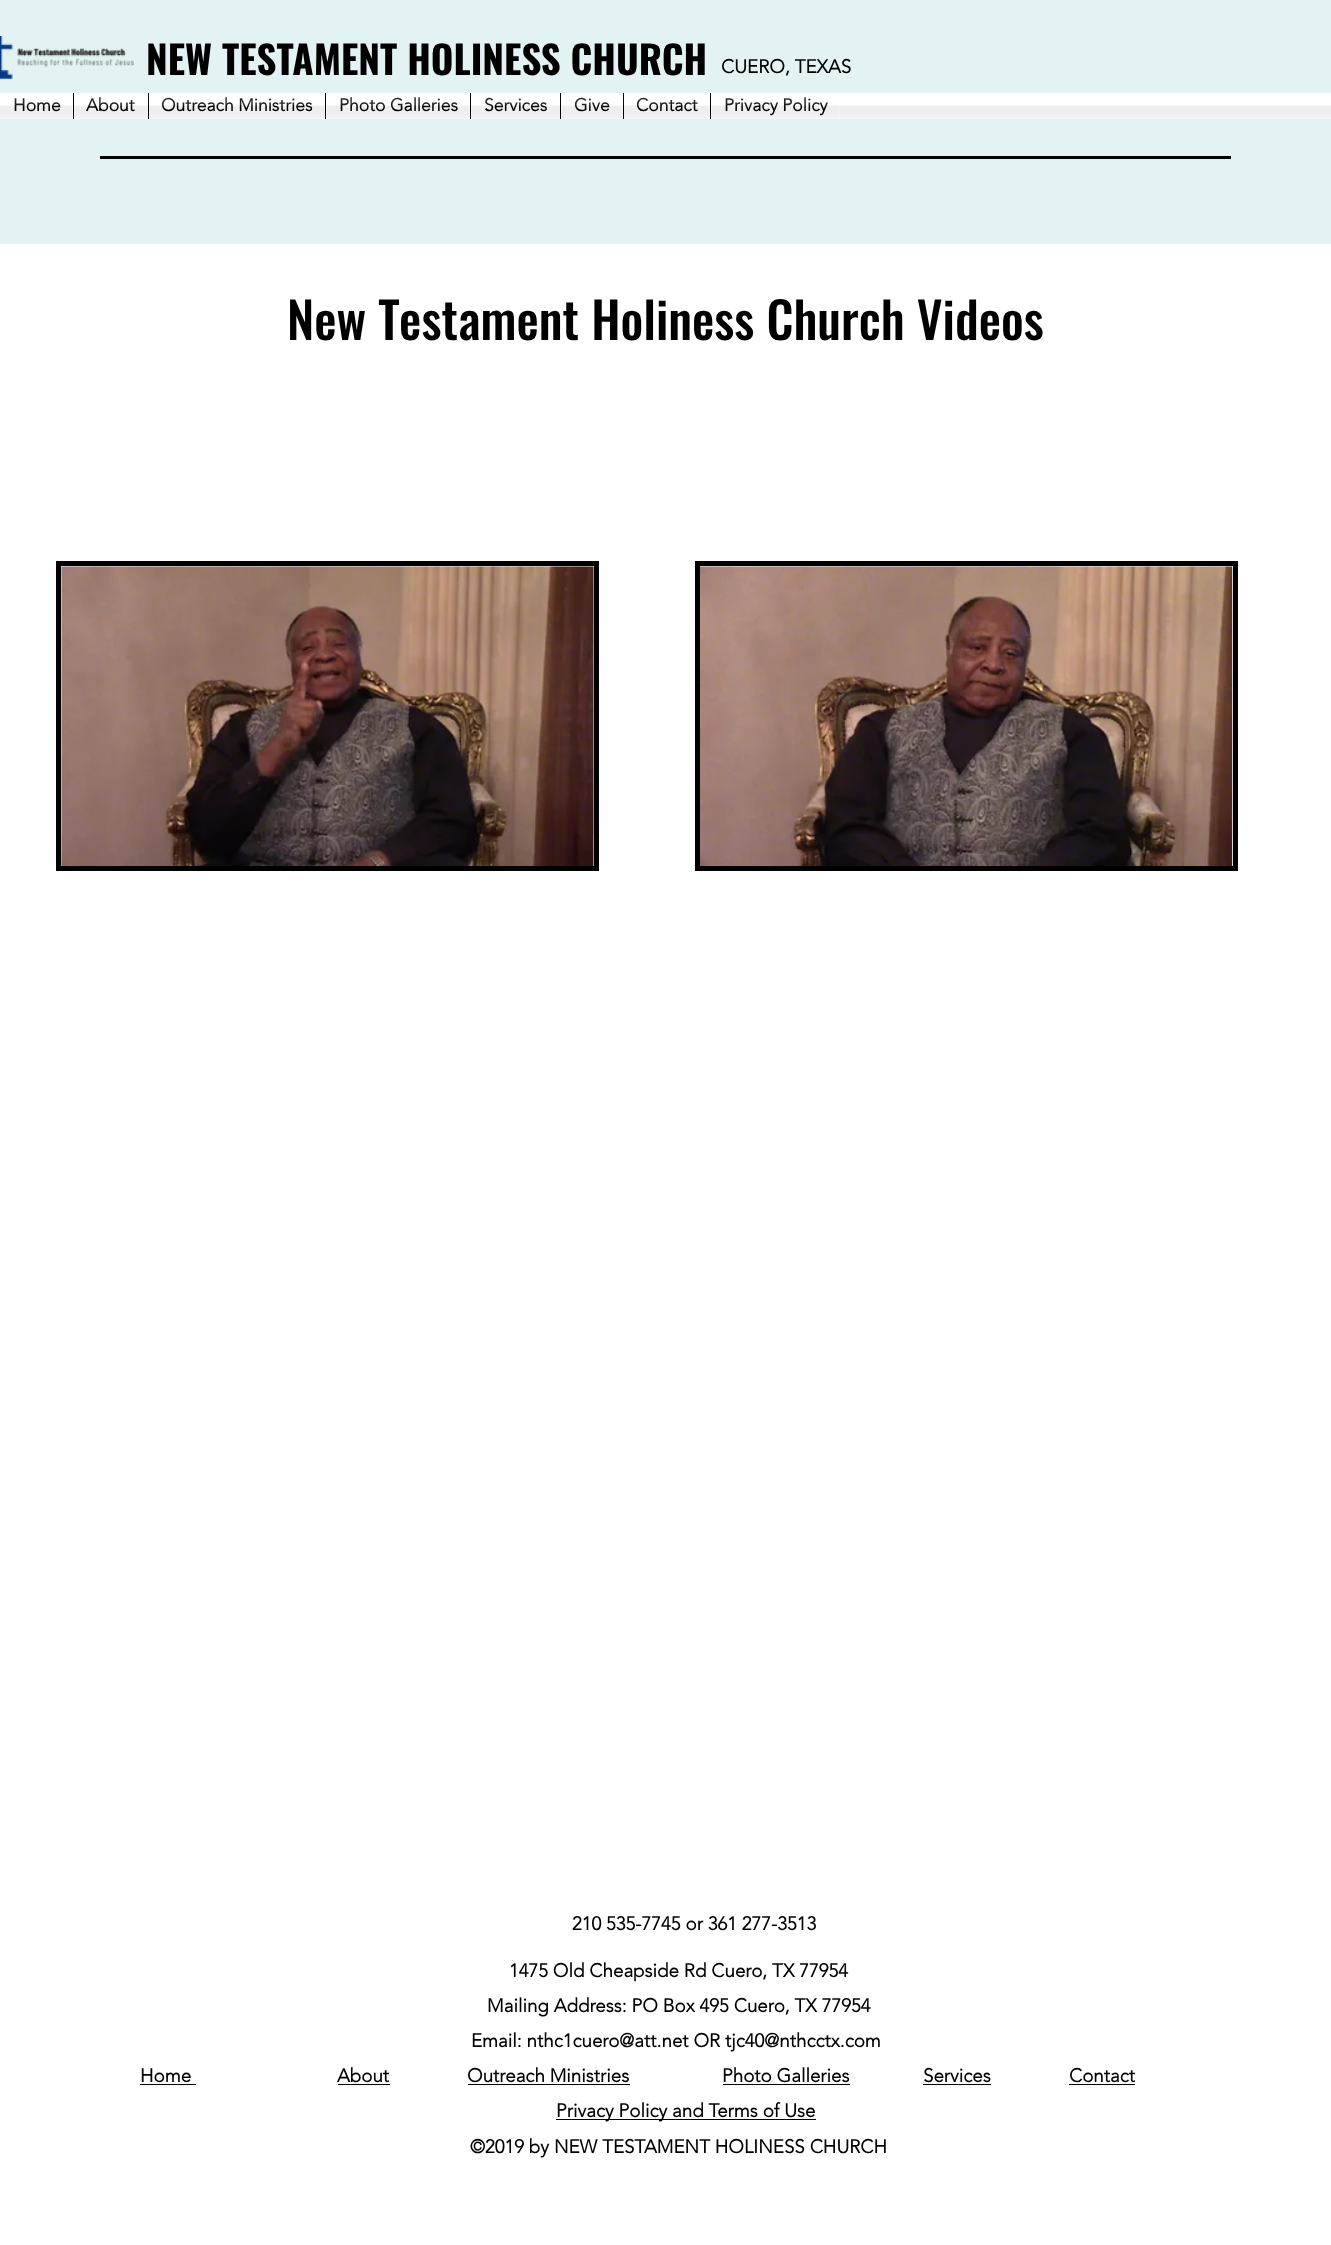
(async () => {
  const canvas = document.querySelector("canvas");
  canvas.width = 1331;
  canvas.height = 2245;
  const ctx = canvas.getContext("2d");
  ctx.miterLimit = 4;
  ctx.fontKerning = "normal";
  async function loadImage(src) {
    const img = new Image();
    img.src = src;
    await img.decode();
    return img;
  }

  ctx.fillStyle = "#ffffff";
  ctx.fillRect(0, 0, 1331, 2245);
  ctx.fillStyle = "#e3f2f3";
  ctx.fillRect(0, 0, 1331, 244);
  ctx.drawImage(await loadImage("img/1.png"), 0, 36, 134, 44);
  ctx.fillStyle = "#ffffff";
  ctx.fillRect(711, 93, 620, 26);
  ctx.drawImage(await loadImage("img/2.png"), 840, 105, 491, 14);
  for (const [x, y, w, h, color] of [
    [0, 93, 73, 26, "#ffffff"],
    [74, 93, 74, 26, "#ffffff"],
    [73, 93, 1, 26, "#000000"],
    [149, 93, 176, 26, "#ffffff"],
    [148, 93, 1, 26, "#000000"],
    [326, 93, 144, 26, "#ffffff"],
    [325, 93, 1, 26, "#000000"],
    [471, 93, 89, 26, "#ffffff"],
    [470, 93, 1, 26, "#000000"],
    [561, 93, 62, 26, "#ffffff"],
    [560, 93, 1, 26, "#000000"],
    [624, 93, 86, 26, "#ffffff"],
    [623, 93, 1, 26, "#000000"],
    [710, 93, 1, 26, "#000000"],
    [100, 156, 1131, 3, "#000000"],
  ]) {
    ctx.fillStyle = color;
    ctx.fillRect(x, y, w, h);
  }
  ctx.strokeStyle = "#000000";
  ctx.lineWidth = 5;
  ctx.strokeRect(58.5, 563.5, 538, 305);
  ctx.drawImage(await loadImage("img/11.png"), 61, 566, 533, 301);
  ctx.strokeRect(697.5, 563.5, 538, 305);
  ctx.drawImage(await loadImage("img/12.png"), 700, 566, 533, 301);
  for (const [x, y, w, h, color] of [
    [140, 2084, 56, 1, "#000000"],
    [338, 2084, 52, 1, "#000000"],
    [468, 2084, 162, 1, "#000000"],
    [723, 2084, 127, 1, "#000000"],
    [923, 2084, 68, 1, "#000000"],
    [1069, 2084, 66, 1, "#000000"],
    [556, 2119, 260, 1, "#000000"],
  ]) {
    ctx.fillStyle = color;
    ctx.fillRect(x, y, w, h);
  }
  ctx.font = "bold 38.75px Oswald";
  ctx.fillText("NEW TESTAMENT HOLINESS CHURCH", 146, 75);
  ctx.font = "bold 18.75px 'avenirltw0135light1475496'";
  ctx.fillText("CUERO, TEXAS", 721, 73);
  ctx.font = "bold 17.5px 'avenirltw0135light1475496'";
  ctx.fillText("Home", 13, 111);
  ctx.drawImage(await loadImage("img/3.png"), 0, 98, 73, 21);
  ctx.fillText("About", 86, 111);
  ctx.drawImage(await loadImage("img/4.png"), 74, 97, 74, 22);
  ctx.fillText("Outreach Ministries", 161, 111);
  ctx.drawImage(await loadImage("img/5.png"), 148, 93, 177, 26);
  ctx.fillText("Photo Galleries", 339, 111);
  ctx.drawImage(await loadImage("img/6.png"), 325, 93, 145, 26);
  ctx.fillText("Services", 484, 111);
  ctx.drawImage(await loadImage("img/7.png"), 471, 98, 89, 21);
  ctx.fillText("Give", 574, 111);
  ctx.drawImage(await loadImage("img/8.png"), 560, 93, 63, 26);
  ctx.fillText("Contact", 636, 111);
  ctx.drawImage(await loadImage("img/9.png"), 623, 93, 87, 26);
  ctx.fillText("Privacy Policy", 724, 111);
  ctx.drawImage(await loadImage("img/10.png"), 710, 93, 130, 26);
  ctx.font = "500 50px Oswald";
  ctx.fillText("New Testament Holiness Church Videos", 287, 340);
  ctx.font = "bold 18.75px 'avenirltw0135light1475496'";
  for (const [text, x, y] of [
    ["210 535-7745 or 361 277-3513", 572, 1930],
    ["1475 Old Cheapside Rd Cuero, TX 77954", 509, 1977],
    ["Mailing Address: PO Box 495 Cuero, TX 77954", 487, 2012],
    ["Email: nthc1cuero@att.net OR tjc40@nthcctx.com", 471, 2047],
    ["Home", 140, 2082],
    ["About", 337, 2082],
    ["Outreach Ministries", 467, 2082],
    ["Photo Galleries", 722, 2082],
    ["Services", 923, 2082],
    ["Contact", 1069, 2082],
    ["Privacy Policy and Terms of Use", 556, 2117],
    ["©2019 by NEW TESTAMENT HOLINESS CHURCH", 470, 2153],
  ]) {
    ctx.fillText(text, x, y);
  }
})();
